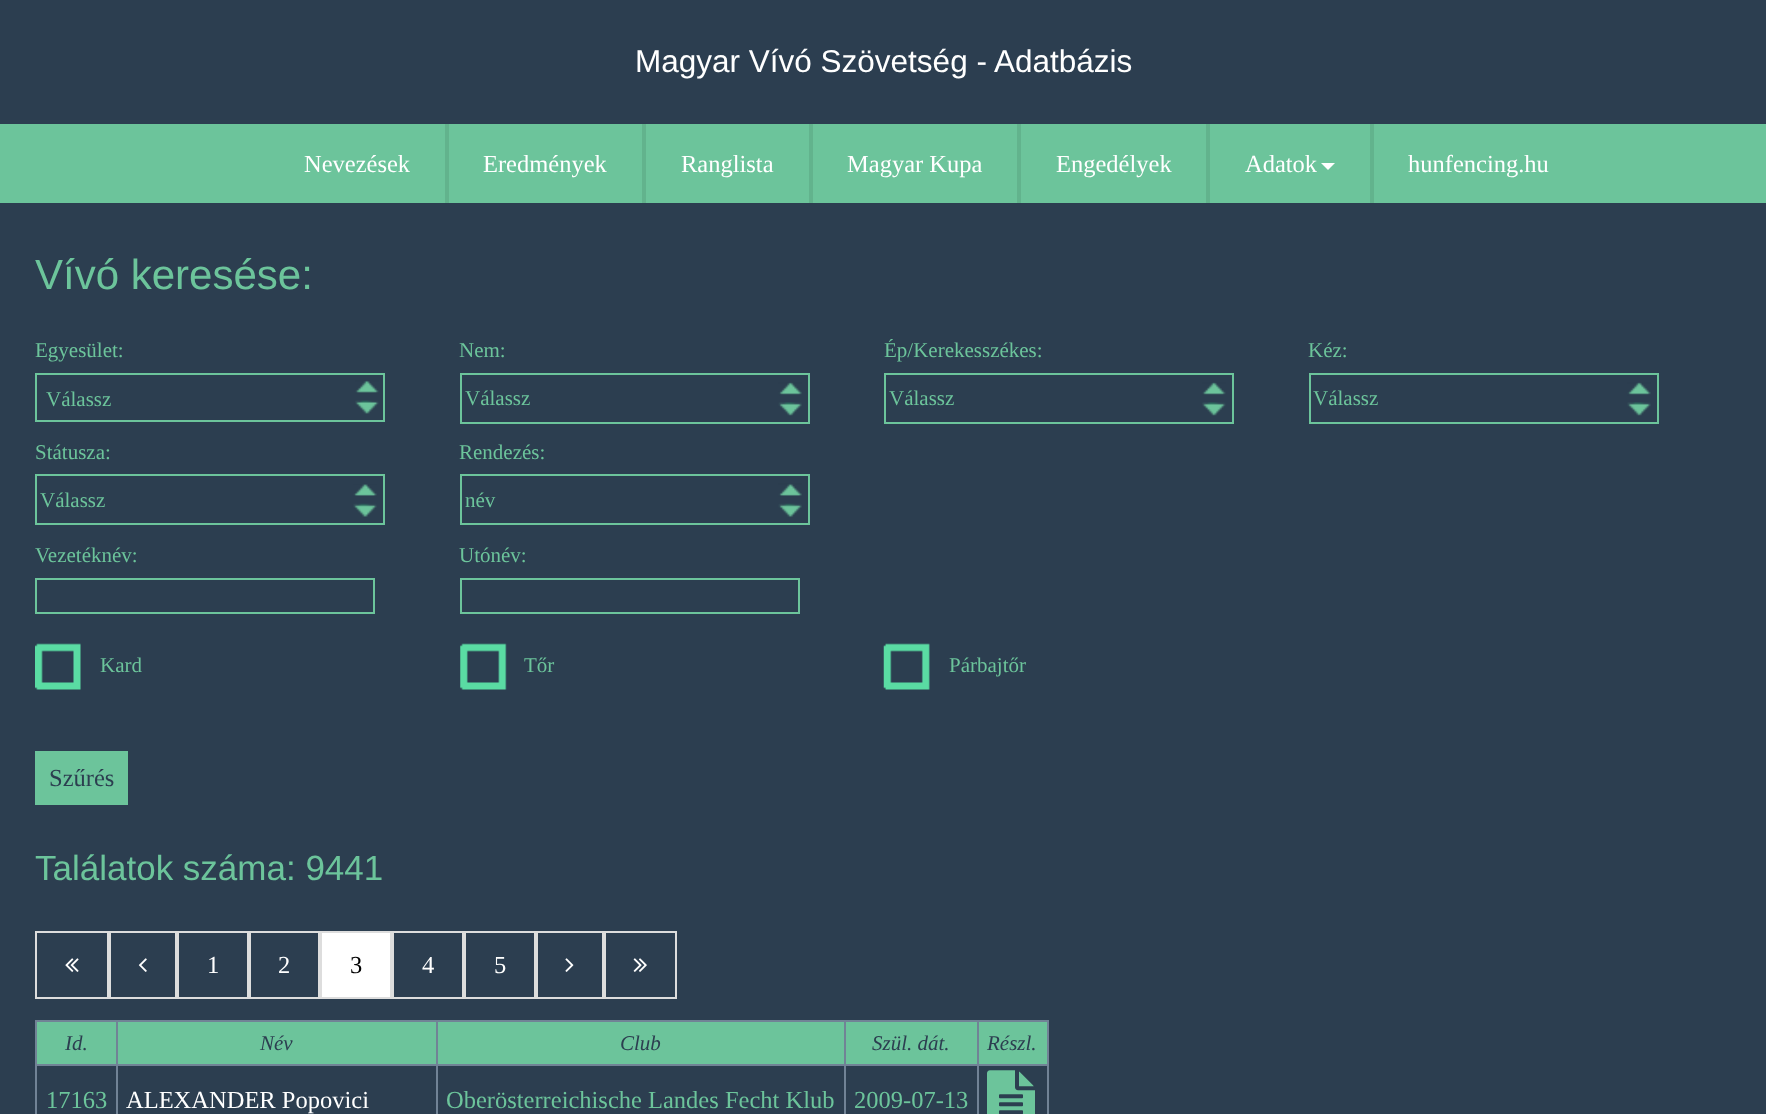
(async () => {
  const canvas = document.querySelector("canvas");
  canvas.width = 1766;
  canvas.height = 1114;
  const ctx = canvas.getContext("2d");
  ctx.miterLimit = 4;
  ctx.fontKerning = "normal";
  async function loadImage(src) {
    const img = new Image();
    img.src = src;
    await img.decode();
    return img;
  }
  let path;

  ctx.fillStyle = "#2c3e50";
  ctx.fillRect(0, 0, 1766, 1114);
  for (const [x, y, w, h, color] of [
    [0, 124, 1766, 79, "#6cc49b"],
    [445, 124, 4, 79, "#62b38d"],
    [642, 124, 4, 79, "#62b38d"],
    [809, 124, 4, 79, "#62b38d"],
    [1017, 124, 4, 79, "#62b38d"],
    [1206, 124, 4, 79, "#62b38d"],
  ]) {
    ctx.fillStyle = color;
    ctx.fillRect(x, y, w, h);
  }
  ctx.fillStyle = "#ffffff";
  path = new Path2D("M1321 163H1335L1328 170Z");
  ctx.fill(path);
  ctx.fillStyle = "#62b38d";
  ctx.fillRect(1370, 124, 4, 79);
  ctx.drawImage(await loadImage("img/1.png"), 355, 380, 24, 34);
  ctx.strokeStyle = "#6cc49b";
  ctx.lineWidth = 2;
  ctx.strokeRect(36, 374, 348, 47);
  ctx.drawImage(await loadImage("img/2.png"), 778, 382, 24, 34);
  ctx.strokeRect(461, 374, 348, 49);
  ctx.drawImage(await loadImage("img/3.png"), 1202, 382, 24, 34);
  ctx.strokeRect(885, 374, 348, 49);
  ctx.drawImage(await loadImage("img/4.png"), 1627, 382, 24, 34);
  ctx.strokeRect(1310, 374, 348, 49);
  ctx.drawImage(await loadImage("img/5.png"), 353, 484, 24, 33);
  ctx.strokeRect(36, 475, 348, 49);
  ctx.drawImage(await loadImage("img/6.png"), 778, 483, 24, 35);
  ctx.strokeRect(461, 475, 348, 49);
  ctx.strokeRect(36, 579, 338, 34);
  ctx.strokeRect(461, 579, 338, 34);
  ctx.drawImage(await loadImage("img/7.png"), 35, 643, 46, 47);
  ctx.drawImage(await loadImage("img/8.png"), 460, 643, 47, 47);
  ctx.drawImage(await loadImage("img/9.png"), 883, 643, 47, 47);
  ctx.fillStyle = "#6cc49b";
  ctx.fillRect(35, 751, 93, 54);
  ctx.strokeStyle = "#dddddd";
  ctx.strokeRect(36, 932, 72, 66);
  ctx.drawImage(await loadImage("img/10.png"), 65, 958, 14, 14);
  ctx.strokeRect(110, 932, 66, 66);
  ctx.drawImage(await loadImage("img/11.png"), 138, 958, 9, 14);
  ctx.strokeRect(178, 932, 70, 66);
  ctx.strokeRect(250, 932, 69, 66);
  ctx.fillStyle = "#ffffff";
  ctx.beginPath();
  ctx.rect(321, 932, 70, 66);
  ctx.fill();
  ctx.stroke();
  ctx.strokeRect(393, 932, 70, 66);
  ctx.strokeRect(465, 932, 70, 66);
  ctx.strokeRect(537, 932, 66, 66);
  ctx.drawImage(await loadImage("img/12.png"), 565, 958, 9, 14);
  ctx.strokeRect(605, 932, 71, 66);
  ctx.drawImage(await loadImage("img/13.png"), 633, 958, 14, 14);
  for (const [x, y, w, h, color] of [
    [37, 1022, 79, 42, "#6cc49b"],
    [977, 1020, 71, 2, "#718396"],
    [977, 1064, 71, 2, "#718396"],
    [977, 1064, 2, 50, "#718396"],
    [844, 1064, 134, 2, "#718396"],
    [977, 1020, 2, 46, "#718396"],
    [844, 1020, 134, 2, "#718396"],
    [844, 1064, 2, 50, "#718396"],
    [436, 1064, 409, 2, "#718396"],
    [844, 1020, 2, 46, "#718396"],
    [436, 1020, 409, 2, "#718396"],
    [436, 1064, 2, 50, "#718396"],
    [116, 1064, 322, 2, "#718396"],
    [436, 1020, 2, 46, "#718396"],
    [116, 1020, 322, 2, "#718396"],
    [116, 1064, 2, 50, "#718396"],
    [35, 1064, 82, 2, "#718396"],
    [116, 1020, 2, 46, "#718396"],
    [35, 1020, 82, 2, "#718396"],
    [35, 1064, 2, 50, "#718396"],
    [35, 1020, 2, 46, "#718396"],
    [118, 1022, 318, 42, "#6cc49b"],
    [438, 1022, 406, 42, "#6cc49b"],
    [846, 1022, 131, 42, "#6cc49b"],
    [979, 1022, 68, 42, "#6cc49b"],
    [1047, 1064, 2, 50, "#718396"],
    [1047, 1020, 2, 46, "#718396"],
  ]) {
    ctx.fillStyle = color;
    ctx.fillRect(x, y, w, h);
  }
  ctx.drawImage(await loadImage("img/14.png"), 987, 1070, 48, 44);
  ctx.font = "31.5px Liberation Sans";
  ctx.fillStyle = "#ffffff";
  ctx.fillText("Magyar Vívó Szövetség - Adatbázis", 635, 72);
  ctx.font = "24.5px Liberation Serif";
  for (const [text, x, y] of [
    ["Nevezések", 304, 172],
    ["Eredmények", 483, 172],
    ["Ranglista", 681, 172],
    ["Magyar Kupa", 847, 172],
    ["Engedélyek", 1056, 172],
    ["Adatok", 1245, 172],
    ["hunfencing.hu", 1408, 172],
  ]) {
    ctx.fillText(text, x, y);
  }
  ctx.font = "42px Liberation Sans";
  ctx.fillStyle = "#6cc49b";
  ctx.fillText("Vívó keresése:", 35, 289);
  ctx.font = "21px Liberation Serif";
  for (const [text, x, y] of [
    ["Egyesület:", 35, 357],
    ["Válassz", 46, 406],
    ["Nem:", 459, 357],
    ["Válassz", 465, 405],
    ["Ép/Kerekesszékes:", 884, 357],
    ["Válassz", 889, 405],
    ["Kéz:", 1308, 357],
    ["Válassz", 1313, 405],
    ["Státusza:", 35, 459],
    ["Válassz", 40, 507],
    ["Rendezés:", 459, 459],
    ["név", 465, 507],
    ["Vezetéknév:", 35, 562],
    ["Utónév:", 459, 562],
    ["Kard", 100, 672],
    ["Tőr", 524, 672],
    ["Párbajtőr", 949, 672],
  ]) {
    ctx.fillText(text, x, y);
  }
  ctx.font = "24.5px Liberation Serif";
  ctx.fillStyle = "#2c3e50";
  ctx.fillText("Szűrés", 49, 786);
  ctx.font = "35px Liberation Sans";
  ctx.fillStyle = "#6cc49b";
  ctx.fillText("Találatok száma: 9441", 35, 880);
  ctx.font = "24.5px Liberation Serif";
  ctx.fillStyle = "#ffffff";
  ctx.fillText("1", 207, 973);
  ctx.fillText("2", 278, 973);
  ctx.fillStyle = "#000000";
  ctx.fillText("3", 350, 973);
  ctx.fillStyle = "#ffffff";
  ctx.fillText("4", 422, 973);
  ctx.fillText("5", 494, 973);
  ctx.font = "italic 21px Liberation Serif";
  ctx.fillStyle = "#2c3e50";
  for (const [text, x, y] of [
    ["Id.", 65, 1050],
    ["Név", 260, 1050],
    ["Club", 620, 1050],
    ["Szül. dát.", 872, 1050],
    ["Részl.", 987, 1050],
  ]) {
    ctx.fillText(text, x, y);
  }
  ctx.font = "24.5px Liberation Serif";
  ctx.fillStyle = "#6cc49b";
  ctx.fillText("17163", 46, 1108);
  ctx.fillStyle = "#ffffff";
  ctx.fillText("ALEXANDER Popovici", 126, 1108);
  ctx.fillStyle = "#6cc49b";
  ctx.fillText("Oberösterreichische Landes Fecht Klub", 446, 1108);
  ctx.fillText("2009-07-13", 854, 1108);
})();
